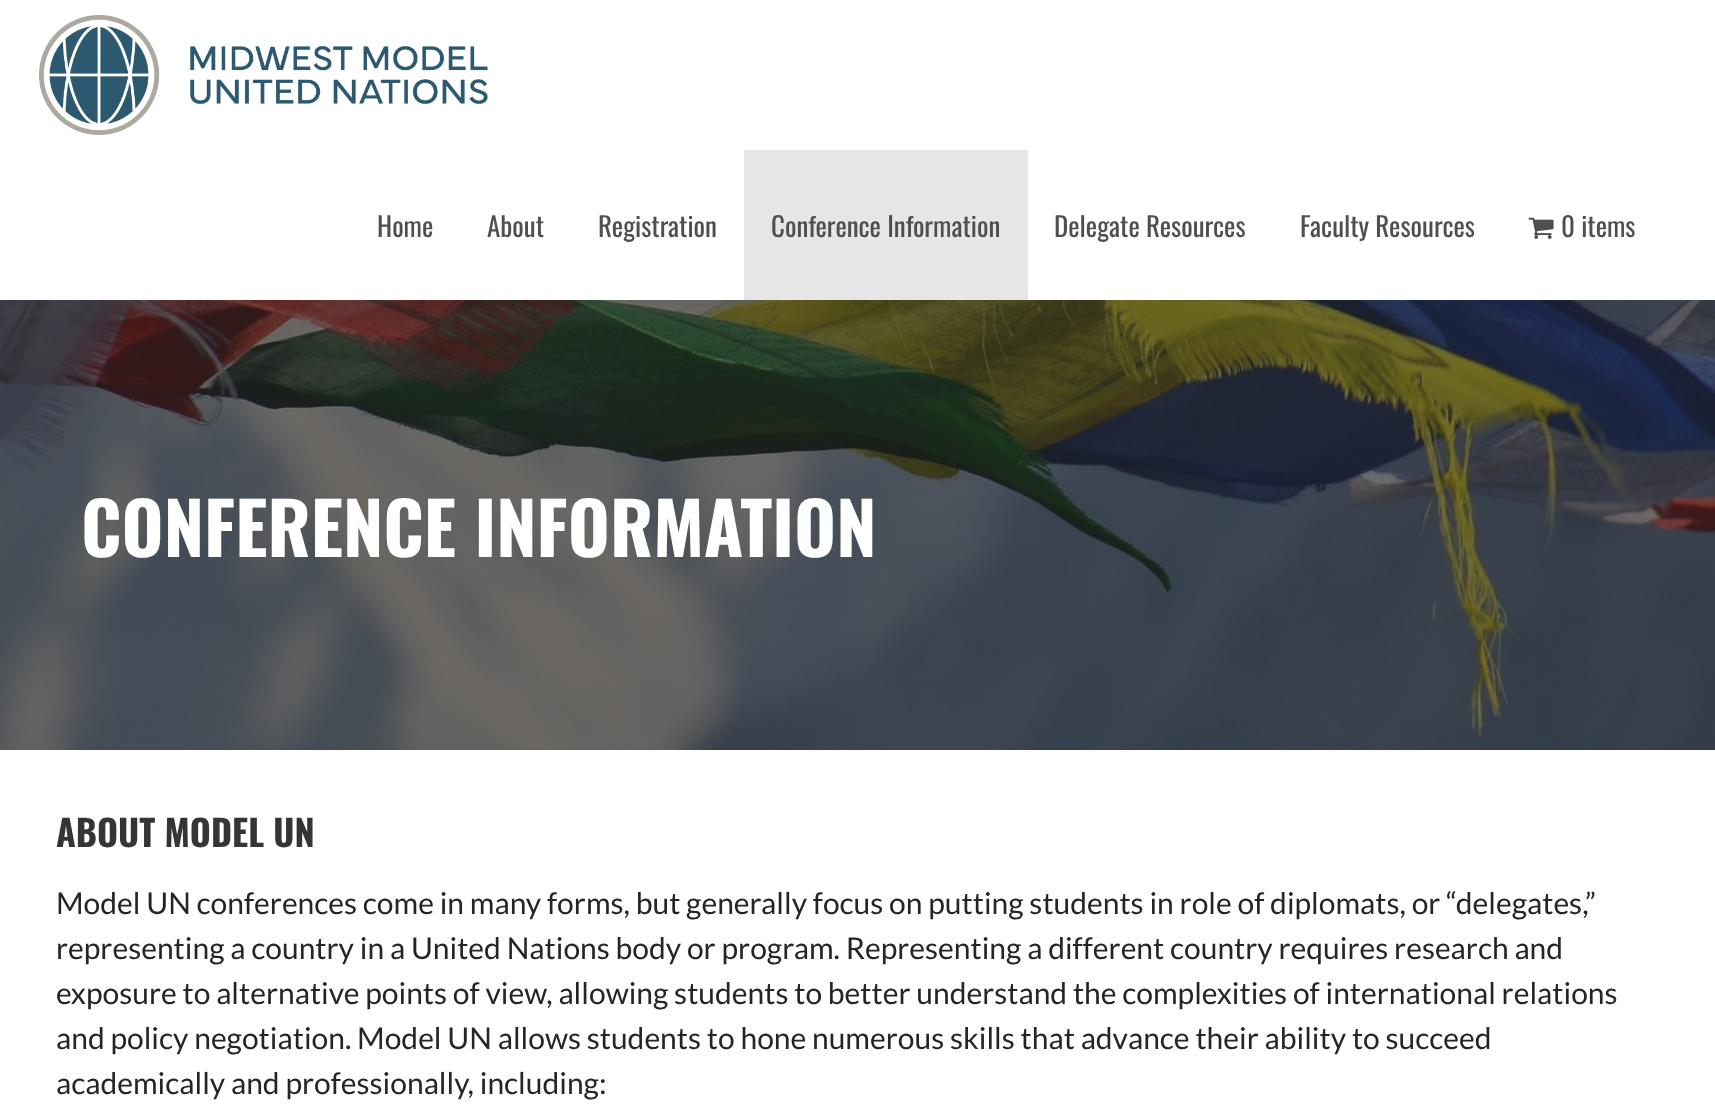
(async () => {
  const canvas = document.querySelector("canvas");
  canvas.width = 1715;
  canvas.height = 1104;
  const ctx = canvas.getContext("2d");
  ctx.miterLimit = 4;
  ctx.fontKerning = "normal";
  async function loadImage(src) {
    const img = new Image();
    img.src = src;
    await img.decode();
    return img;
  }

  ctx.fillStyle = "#ffffff";
  ctx.fillRect(0, 0, 1715, 1104);
  ctx.drawImage(await loadImage("img/1.png"), 39, 15, 449, 120);
  ctx.fillStyle = "#e6e6e6";
  ctx.fillRect(744, 150, 284, 150);
  ctx.drawImage(await loadImage("img/2.png"), 1528, 217, 26, 22);
  ctx.drawImage(await loadImage("img/3.png"), 0, 300, 1715, 450);
  ctx.font = "27px Oswald";
  ctx.fillStyle = "#4f4f4f";
  for (const [text, x, y] of [
    ["Home", 377, 237],
    ["About", 487, 237],
    ["Registration", 598, 237],
    ["Conference Information", 771, 237],
    ["Delegate Resources", 1054, 237],
    ["Faculty Resources", 1300, 237],
    ["0 items", 1561, 237],
  ]) {
    ctx.fillText(text, x, y);
  }
  ctx.font = "bold 72px Oswald";
  ctx.fillStyle = "#ffffff";
  ctx.fillText("CONFERENCE INFORMATION", 81, 557);
  ctx.font = "bold 36px Oswald";
  ctx.fillStyle = "#353535";
  ctx.fillText("ABOUT MODEL UN", 56, 847);
  ctx.font = "30px Lato";
  ctx.fillStyle = "#252525";
  for (const [text, x, y] of [
    ["Model UN conferences come in many forms, but generally focus on putting students in role of diplomats, or “delegates,”", 56, 914],
    ["representing a country in a United Nations body or program. Representing a different country requires research and", 56, 959],
    ["exposure to alternative points of view, allowing students to better understand the complexities of international relations", 56, 1004],
    ["and policy negotiation. Model UN allows students to hone numerous skills that advance their ability to succeed", 56, 1049],
    ["academically and professionally, including:", 56, 1094],
  ]) {
    ctx.fillText(text, x, y);
  }
})();
